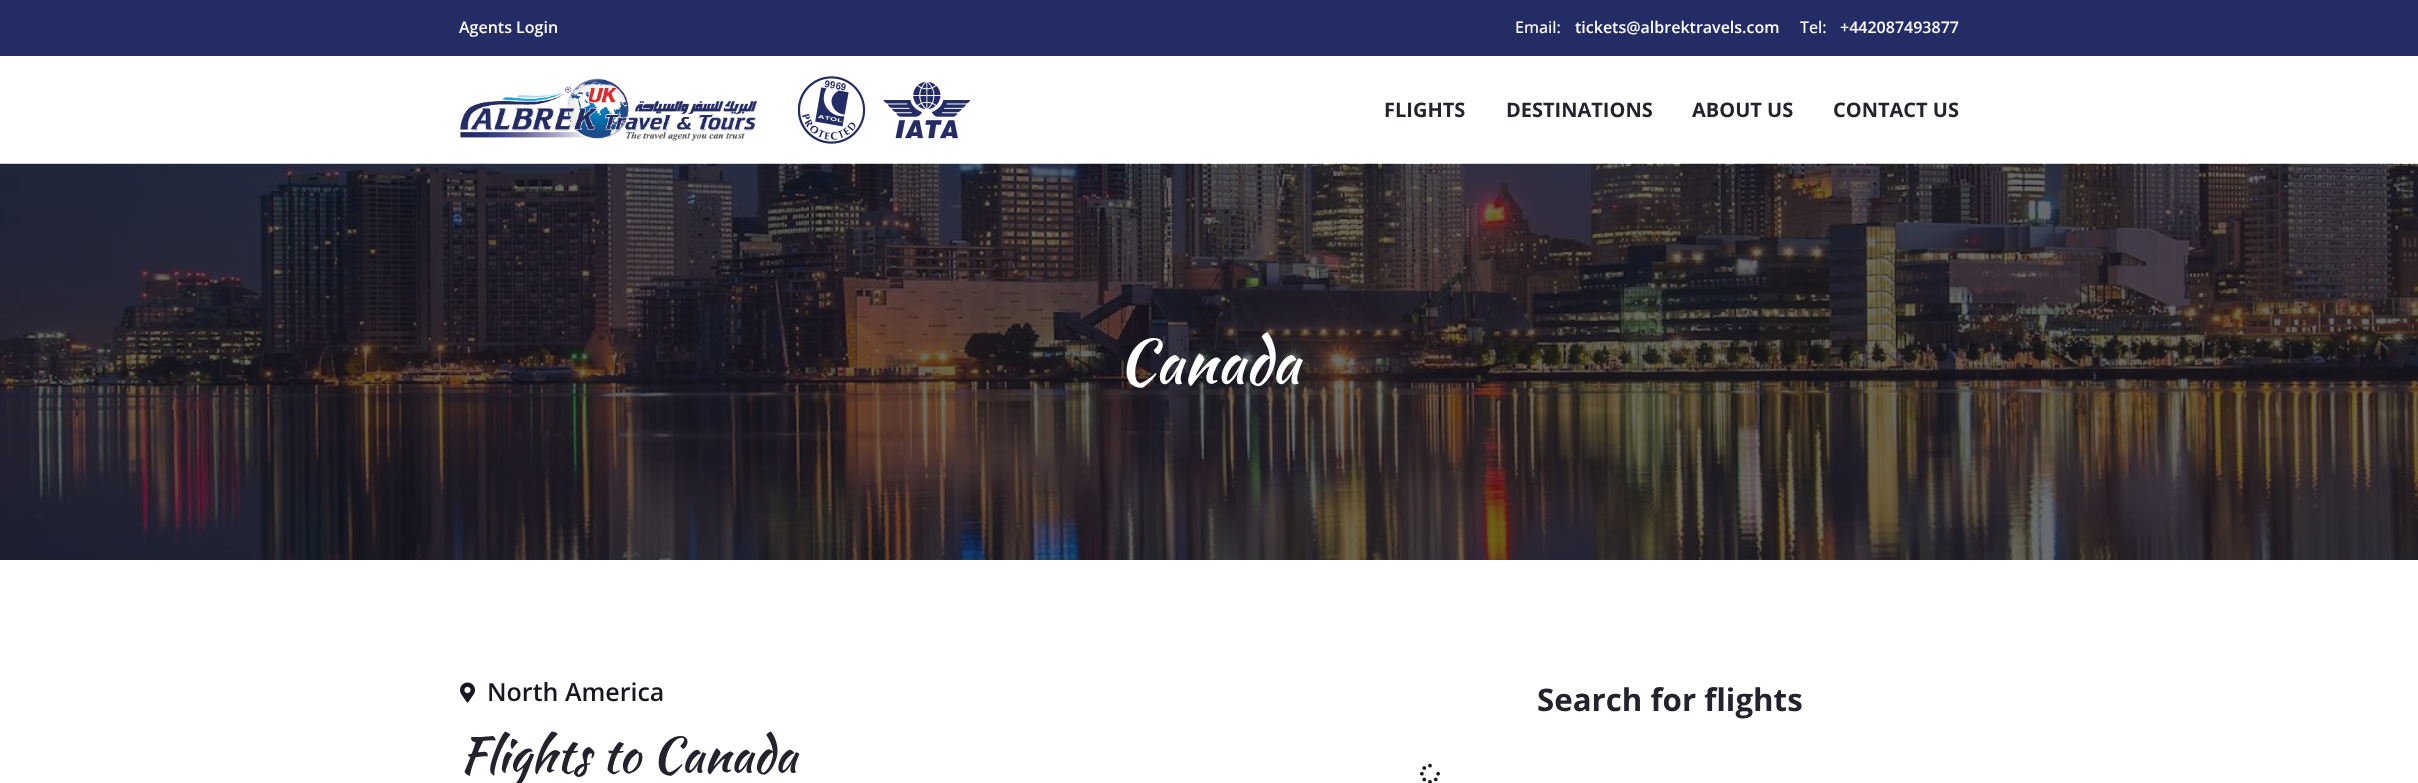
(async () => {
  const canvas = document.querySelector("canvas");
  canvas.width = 2418;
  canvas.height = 783;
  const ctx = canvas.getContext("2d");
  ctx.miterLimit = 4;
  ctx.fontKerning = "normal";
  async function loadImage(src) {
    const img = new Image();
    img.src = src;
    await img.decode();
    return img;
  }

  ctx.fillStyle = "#ffffff";
  ctx.fillRect(0, 0, 2418, 783);
  ctx.fillStyle = "#232c65";
  ctx.fillRect(0, 0, 2418, 56);
  ctx.drawImage(await loadImage("img/1.png"), 460, 78, 298, 63);
  ctx.drawImage(await loadImage("img/2.png"), 798, 76, 172, 68);
  ctx.drawImage(await loadImage("img/3.png"), 0, 163, 2418, 397);
  ctx.drawImage(await loadImage("img/4.png"), 460, 682, 15, 21);
  ctx.drawImage(await loadImage("img/5.png"), 1420, 763, 20, 20);
  ctx.font = "600 16px Open Sans";
  ctx.fillStyle = "#ffffff";
  ctx.fillText("Agents Login", 459, 33);
  ctx.font = "500 16px Open Sans";
  ctx.fillText("Email:", 1515, 33);
  ctx.font = "600 16px Open Sans";
  ctx.fillText("tickets@albrektravels.com", 1575, 33);
  ctx.font = "500 16px Open Sans";
  ctx.fillText("Tel:", 1800, 33);
  ctx.font = "600 16px Open Sans";
  ctx.fillText("+442087493877", 1840, 33);
  ctx.font = "bold 20px Open Sans";
  ctx.fillStyle = "#24232d";
  for (const [text, x, y] of [
    ["FLIGHTS", 1384, 117],
    ["DESTINATIONS", 1506, 117],
    ["ABOUT US", 1692, 117],
    ["CONTACT US", 1833, 117],
  ]) {
    ctx.fillText(text, x, y);
  }
  ctx.font = "61px Kaushan Script";
  ctx.fillStyle = "#ffffff";
  ctx.fillText("Canada", 1118, 383);
  ctx.font = "600 25px Open Sans";
  ctx.fillStyle = "#181720";
  ctx.fillText("North America", 487, 701);
  ctx.font = "48.75px Kaushan Script";
  ctx.fillStyle = "#24232d";
  ctx.fillText("Flights to Canada", 459, 772);
  ctx.font = "bold 31.25px Open Sans";
  ctx.fillText("Search for flights", 1537, 711);
})();
